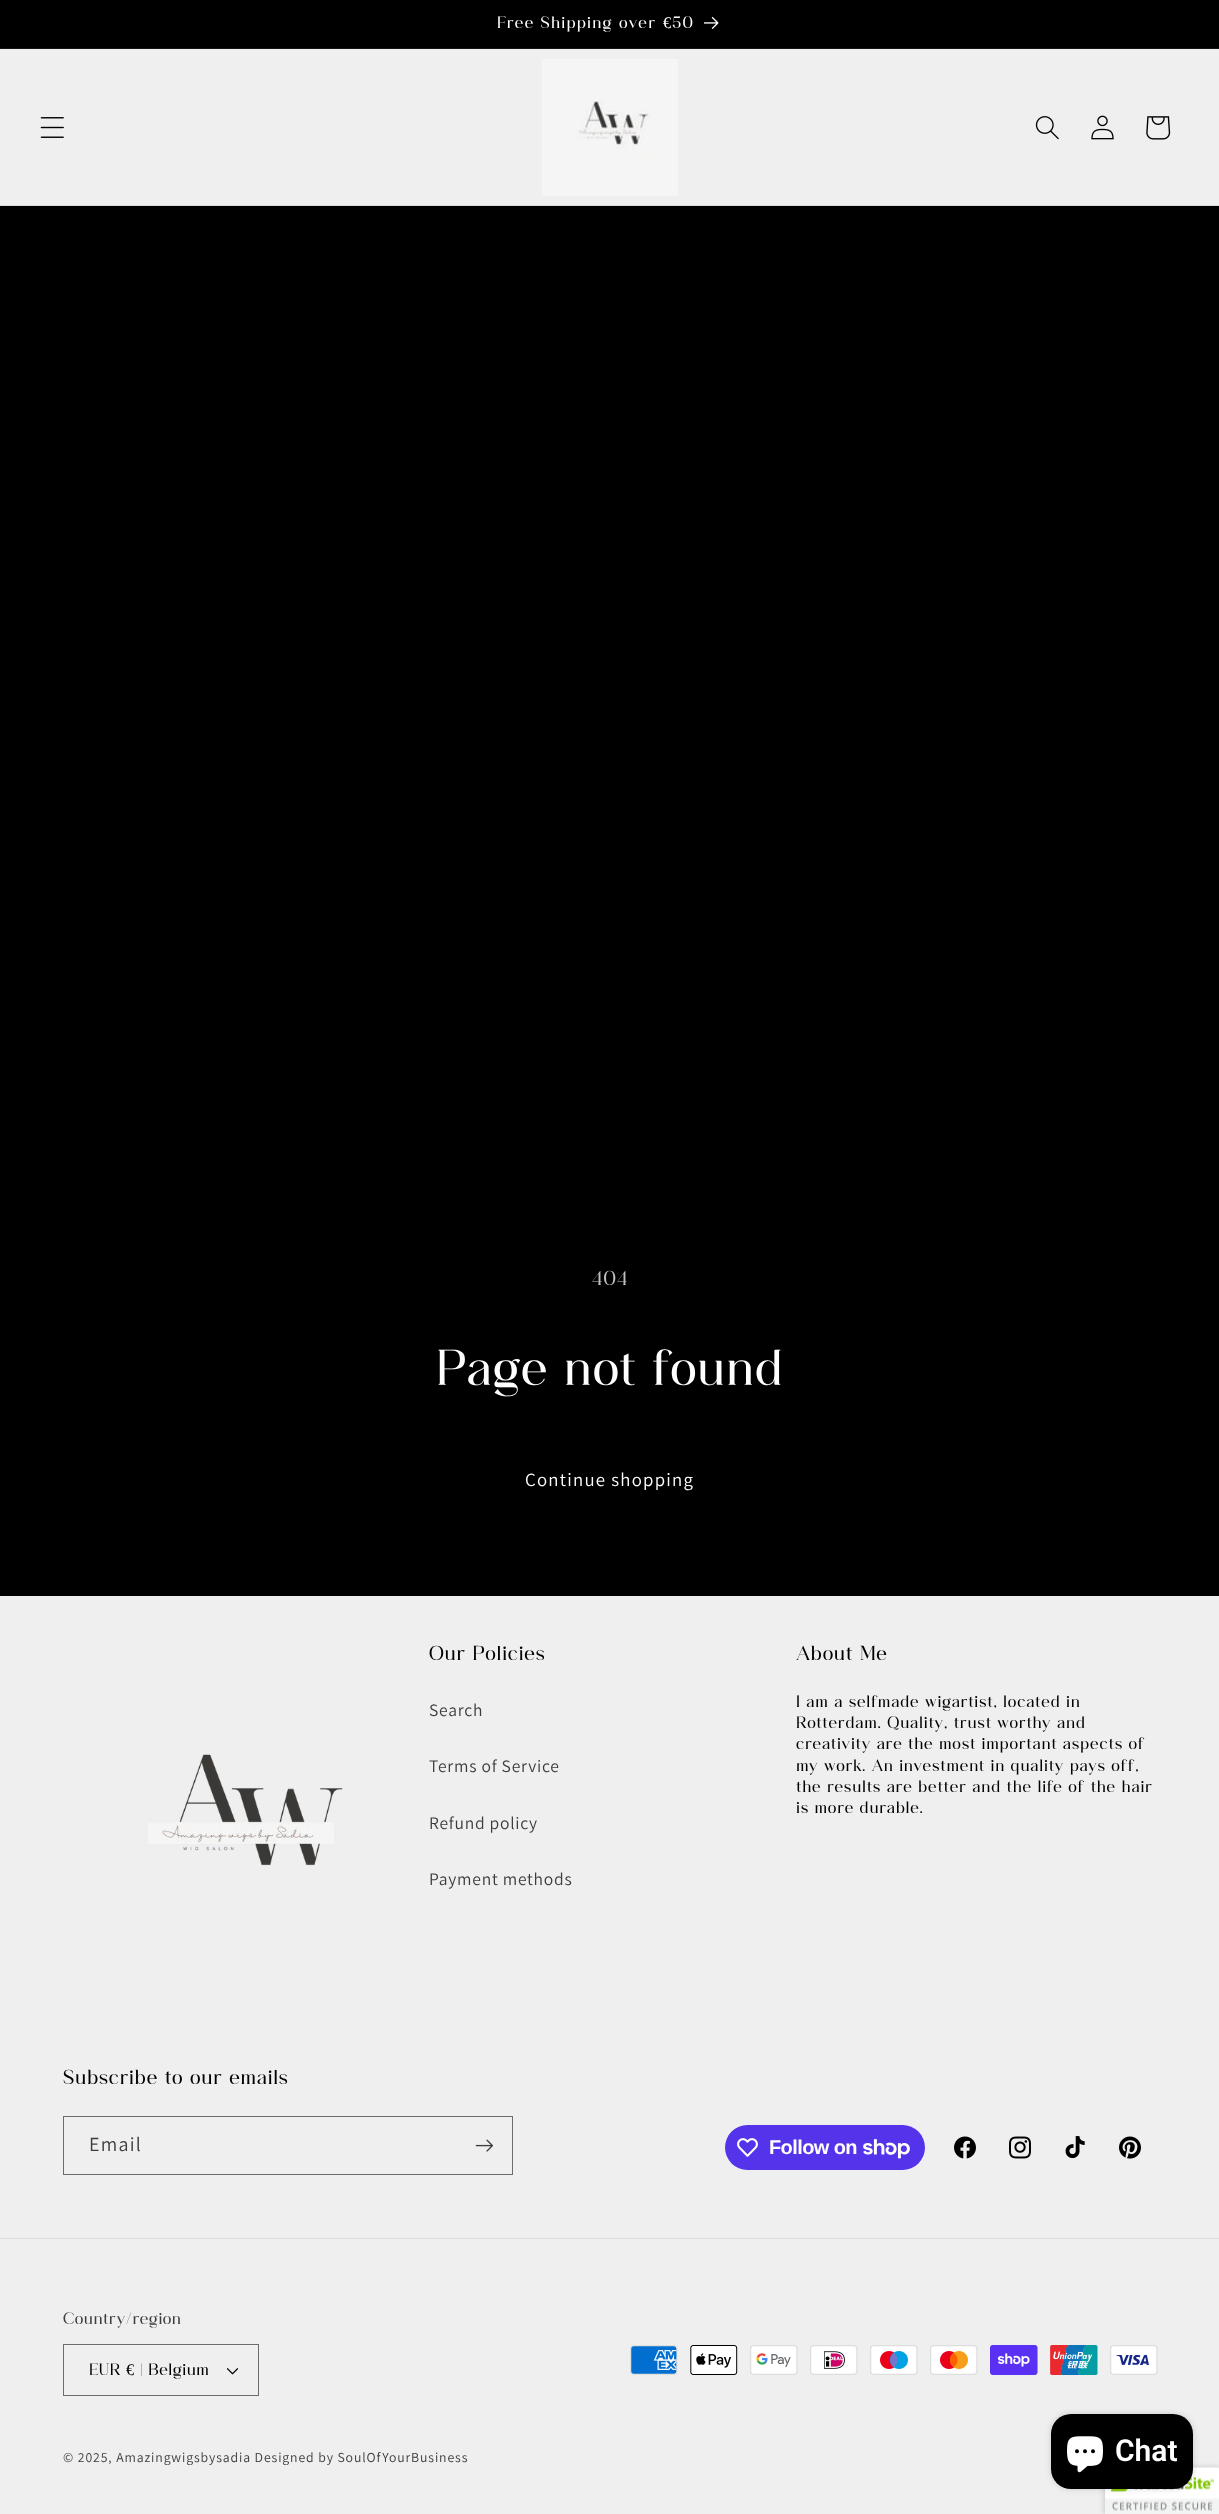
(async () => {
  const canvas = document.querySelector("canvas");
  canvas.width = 1219;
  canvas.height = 2514;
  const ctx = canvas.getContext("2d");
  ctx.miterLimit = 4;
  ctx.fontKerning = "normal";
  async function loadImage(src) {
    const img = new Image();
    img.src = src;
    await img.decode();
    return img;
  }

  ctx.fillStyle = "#000000";
  ctx.fillRect(0, 0, 1219, 2514);
  ctx.fillStyle = "#141414";
  ctx.fillRect(0, 48, 1219, 1);
  ctx.drawImage(await loadImage("img/1.png"), 704, 16, 15, 13);
  ctx.fillStyle = "#efefef";
  ctx.fillRect(0, 49, 1219, 156);
  ctx.fillStyle = "#dcdcdc";
  ctx.fillRect(0, 205, 1219, 1);
  ctx.drawImage(await loadImage("img/2.png"), 40, 117, 24, 21);
  ctx.drawImage(await loadImage("img/3.png"), 542, 59, 136, 137);
  ctx.drawImage(await loadImage("img/4.png"), 1035, 116, 24, 24);
  ctx.drawImage(await loadImage("img/5.png"), 1091, 115, 23, 25);
  ctx.drawImage(await loadImage("img/6.png"), 1146, 116, 25, 24);
  ctx.fillStyle = "#efefef";
  ctx.fillRect(0, 1596, 1219, 918);
  ctx.drawImage(await loadImage("img/7.png"), 148, 1754, 195, 112);
  ctx.strokeStyle = "#6c6c6c";
  ctx.strokeRect(63.5, 2116.5, 449, 58);
  ctx.drawImage(await loadImage("img/8.png"), 475, 2139, 18, 13);
  ctx.fillStyle = "#5433eb";
  ctx.beginPath();
  ctx.roundRect(725, 2125, 200, 45, 22.5);
  ctx.fill();
  ctx.drawImage(await loadImage("img/9.png"), 737, 2138, 21, 19);
  ctx.drawImage(await loadImage("img/10.png"), 863, 2139, 47, 20);
  ctx.drawImage(await loadImage("img/11.png"), 954, 2136, 22, 23);
  ctx.drawImage(await loadImage("img/12.png"), 1009, 2136, 22, 23);
  ctx.drawImage(await loadImage("img/13.png"), 1065, 2136, 20, 23);
  ctx.drawImage(await loadImage("img/14.png"), 1119, 2136, 22, 23);
  ctx.fillStyle = "#dcdcdc";
  ctx.fillRect(0, 2238, 1219, 1);
  ctx.drawImage(await loadImage("img/15.png"), 226, 2368, 13, 7);
  ctx.strokeRect(63.5, 2344.5, 195, 51);
  ctx.drawImage(await loadImage("img/16.png"), 630, 2345, 48, 30);
  ctx.drawImage(await loadImage("img/17.png"), 690, 2345, 48, 30);
  ctx.drawImage(await loadImage("img/18.png"), 750, 2345, 48, 30);
  ctx.drawImage(await loadImage("img/19.png"), 810, 2345, 48, 30);
  ctx.drawImage(await loadImage("img/20.png"), 870, 2345, 48, 30);
  ctx.drawImage(await loadImage("img/21.png"), 930, 2345, 48, 30);
  ctx.drawImage(await loadImage("img/22.png"), 990, 2345, 48, 30);
  ctx.drawImage(await loadImage("img/23.png"), 1050, 2345, 48, 30);
  ctx.drawImage(await loadImage("img/24.png"), 1110, 2345, 48, 30);
  ctx.fillStyle = "rgba(0, 0, 0, 0.2)";
  ctx.filter = "blur(3px)";
  ctx.beginPath();
  ctx.roundRect(1105, 2468, 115, 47, 2.5);
  ctx.fill();
  ctx.filter = "none";
  ctx.drawImage(await loadImage("img/26.png"), 1105, 2467, 114, 47);
  ctx.fillStyle = "rgba(0, 0, 0, 0.15)";
  ctx.filter = "blur(3px)";
  ctx.beginPath();
  ctx.roundRect(1051, 2414, 142, 75, 20);
  ctx.fill();
  ctx.filter = "none";
  ctx.fillStyle = "#000000";
  ctx.beginPath();
  ctx.roundRect(1051, 2414, 142, 75, 20);
  ctx.fill();
  ctx.drawImage(await loadImage("img/25.png"), 1067, 2436, 36, 37);
  ctx.letterSpacing = "1.25px";
  ctx.font = "16.25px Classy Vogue";
  ctx.fillStyle = "#ffffff";
  ctx.fillText("Free Shipping over", 497, 28);
  ctx.font = "16.25px Liberation Serif";
  ctx.fillText("€", 663, 28);
  ctx.font = "16.25px Classy Vogue";
  ctx.fillText("50", 672, 28);
  ctx.letterSpacing = "0.75px";
  ctx.font = "20px Classy Vogue";
  ctx.fillStyle = "#bfbfbf";
  ctx.fillText("404", 592, 1285);
  ctx.font = "50px Classy Vogue";
  ctx.fillStyle = "#ffffff";
  ctx.fillText("Page not found", 436, 1385);
  ctx.letterSpacing = "1.25px";
  ctx.font = "18.75px Assistant";
  ctx.fillText("Continue shopping", 525, 1486);
  ctx.letterSpacing = "0.75px";
  ctx.font = "20px Classy Vogue";
  ctx.fillStyle = "#000000";
  ctx.fillText("Our Policies", 429, 1660);
  ctx.font = "17.5px Assistant";
  ctx.fillStyle = "#3c3c3c";
  for (const [text, x, y] of [
    ["Search", 429, 1716],
    ["Terms of Service", 429, 1772],
    ["Refund policy", 429, 1829],
    ["Payment methods", 429, 1885],
  ]) {
    ctx.fillText(text, x, y);
  }
  ctx.font = "20px Classy Vogue";
  ctx.fillStyle = "#000000";
  ctx.fillText("About Me", 796, 1660);
  ctx.font = "16.25px Classy Vogue";
  for (const [text, x, y] of [
    ["I am a selfmade wigartist, located in", 796, 1707],
    ["Rotterdam. Quality, trust worthy and", 796, 1728],
    ["creativity are the most important aspects of", 796, 1749],
    ["my work. An investment in quality pays off,", 796, 1771],
    ["the results are better and the life of the hair", 796, 1792],
    ["is more durable.", 796, 1813],
  ]) {
    ctx.fillText(text, x, y);
  }
  ctx.font = "20px Classy Vogue";
  ctx.fillText("Subscribe to our emails", 63, 2084);
  ctx.letterSpacing = "1.25px";
  ctx.font = "20px Assistant";
  ctx.fillStyle = "#3c3c3c";
  ctx.fillText("Email", 89, 2151);
  ctx.letterSpacing = "-0.6px";
  ctx.font = "bold 20px Liberation Sans";
  ctx.fillStyle = "#ffffff";
  ctx.fillText("Follow on", 769, 2154);
  ctx.letterSpacing = "0.5px";
  ctx.font = "16.25px Classy Vogue";
  ctx.fillStyle = "#3c3c3c";
  ctx.fillText("Country/region", 63, 2324);
  ctx.fillStyle = "#000000";
  ctx.fillText("EUR", 89, 2375);
  ctx.font = "16.25px Liberation Serif";
  ctx.fillText("€", 126, 2375);
  ctx.font = "16.25px Classy Vogue";
  ctx.fillText("| Belgium", 140, 2375);
  ctx.letterSpacing = "0.88px";
  ctx.font = "13.75px Assistant";
  ctx.fillStyle = "#3c3c3c";
  ctx.fillText("© 2025, Amazingwigsbysadia Designed by SoulOfYourBusiness", 63, 2462);
  ctx.letterSpacing = "0px";
  ctx.font = "600 30px Roboto";
  ctx.fillStyle = "#ffffff";
  ctx.fillText("Chat", 1115, 2461);
})();
